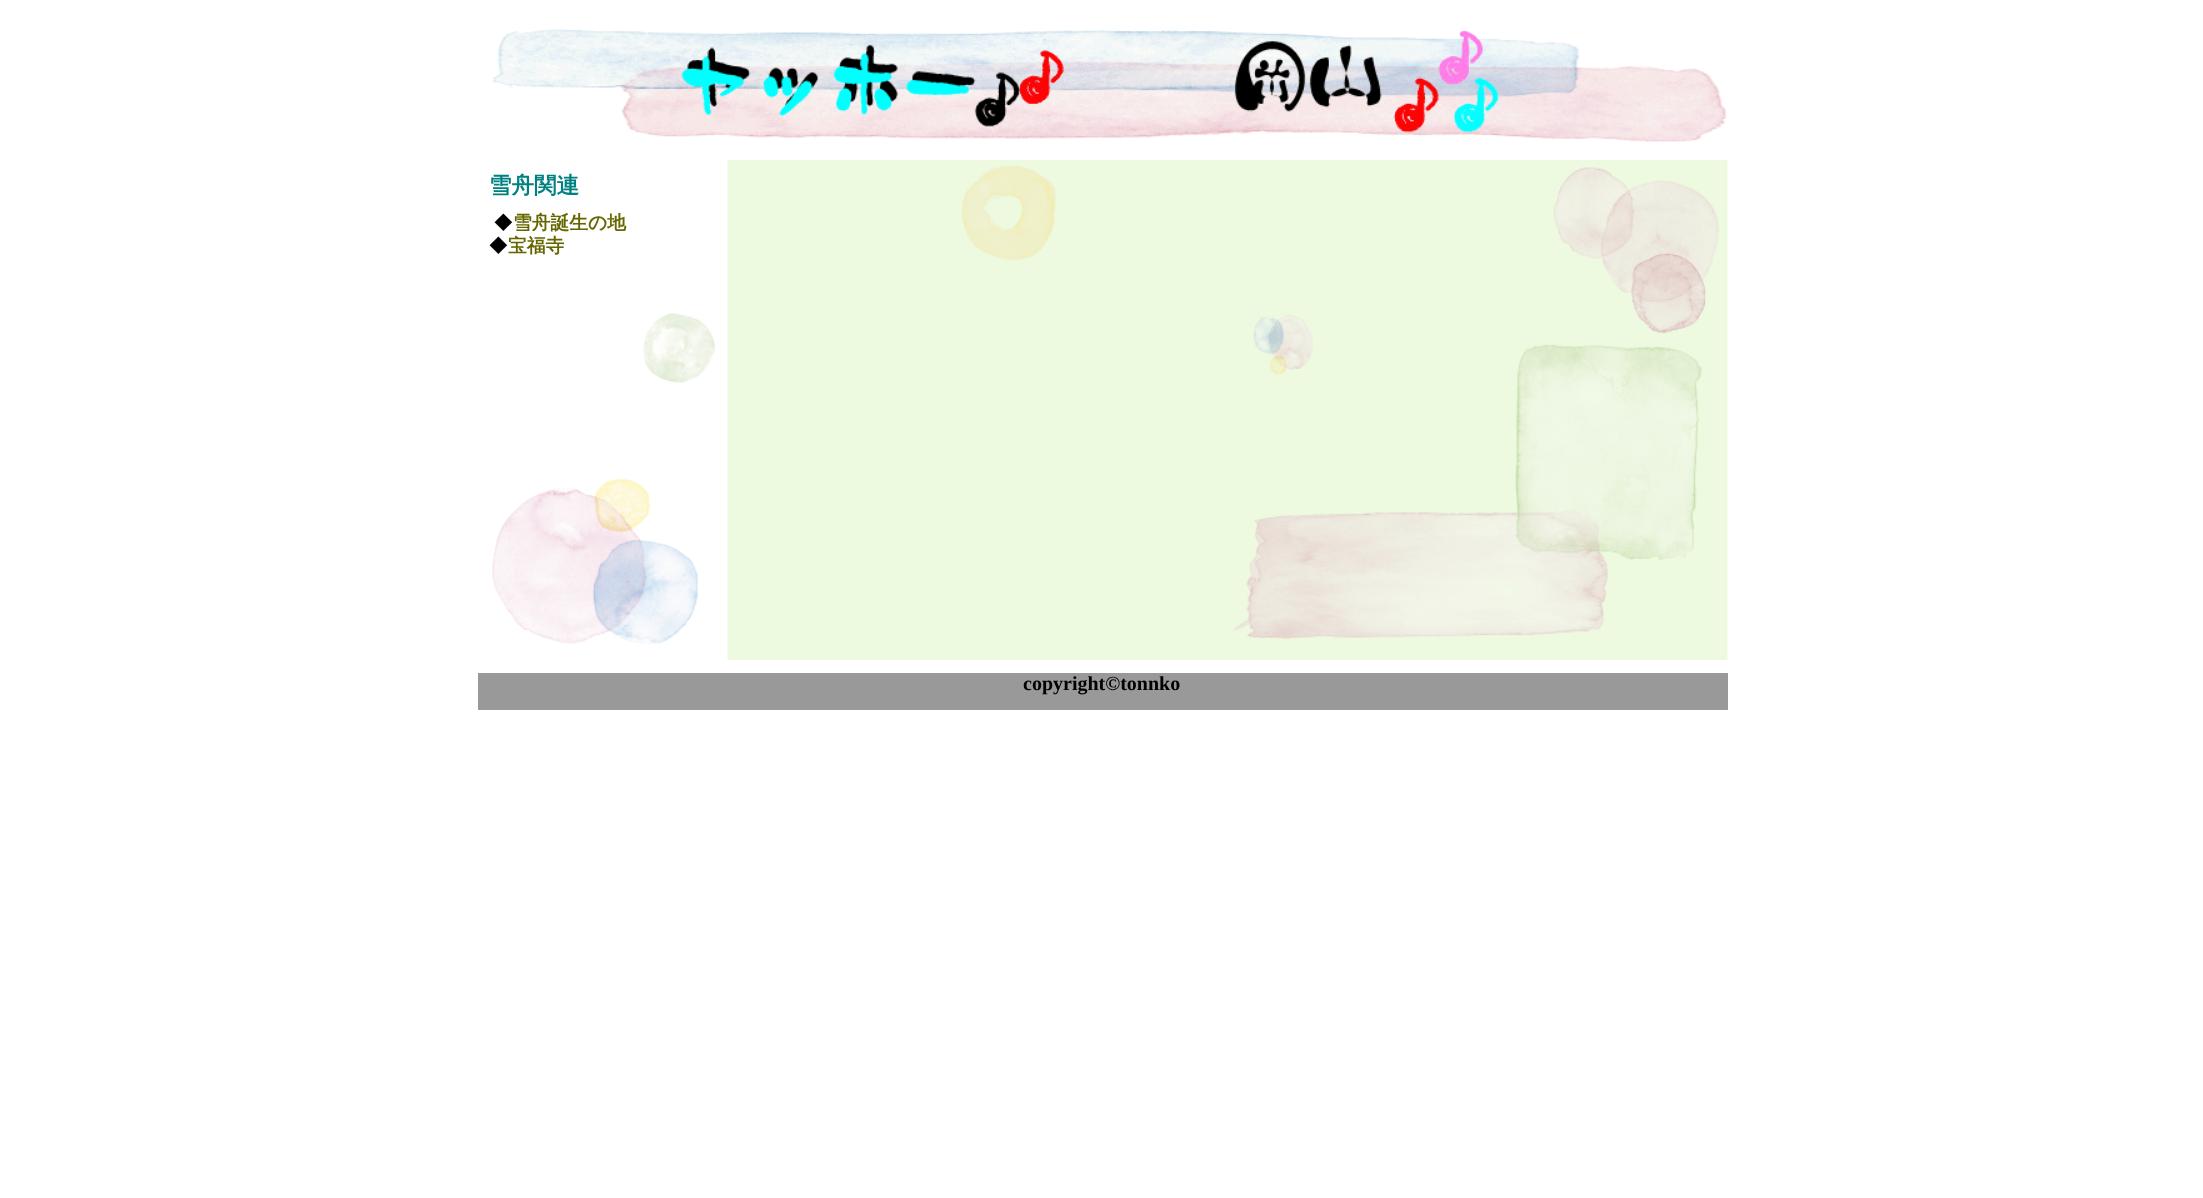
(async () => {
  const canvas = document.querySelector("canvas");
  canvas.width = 2203;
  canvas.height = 1198;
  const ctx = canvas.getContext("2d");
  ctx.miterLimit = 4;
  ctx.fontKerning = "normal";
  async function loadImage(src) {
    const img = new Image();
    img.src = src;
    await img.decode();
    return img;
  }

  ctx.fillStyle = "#ffffff";
  ctx.fillRect(0, 0, 2203, 1198);
  ctx.drawImage(await loadImage("img/1.png"), 492, 29, 1235, 113);
  ctx.drawImage(await loadImage("img/2.png"), 492, 313, 223, 331);
  ctx.drawImage(await loadImage("img/3.png"), 727, 160, 1001, 500);
  ctx.fillStyle = "#999999";
  ctx.fillRect(478, 673, 1250, 37);
  ctx.font = "bold 22.5px WenQuanYi Zen Hei";
  ctx.fillStyle = "#008080";
  ctx.fillText("雪舟関連", 489, 193);
  ctx.font = "500 18.75px WenQuanYi Zen Hei";
  ctx.fillStyle = "#000000";
  ctx.fillText("◆", 494, 229);
  ctx.font = "bold 18.75px WenQuanYi Zen Hei";
  ctx.fillStyle = "#666600";
  ctx.fillText("雪舟誕生の地", 513, 229);
  ctx.font = "500 18.75px WenQuanYi Zen Hei";
  ctx.fillStyle = "#000000";
  ctx.fillText("◆", 489, 252);
  ctx.font = "bold 18.75px WenQuanYi Zen Hei";
  ctx.fillStyle = "#666600";
  ctx.fillText("宝福寺", 508, 252);
  ctx.font = "bold 20px Liberation Serif";
  ctx.fillStyle = "#000000";
  ctx.fillText("copyright©tonnko", 1023, 690);
})();
